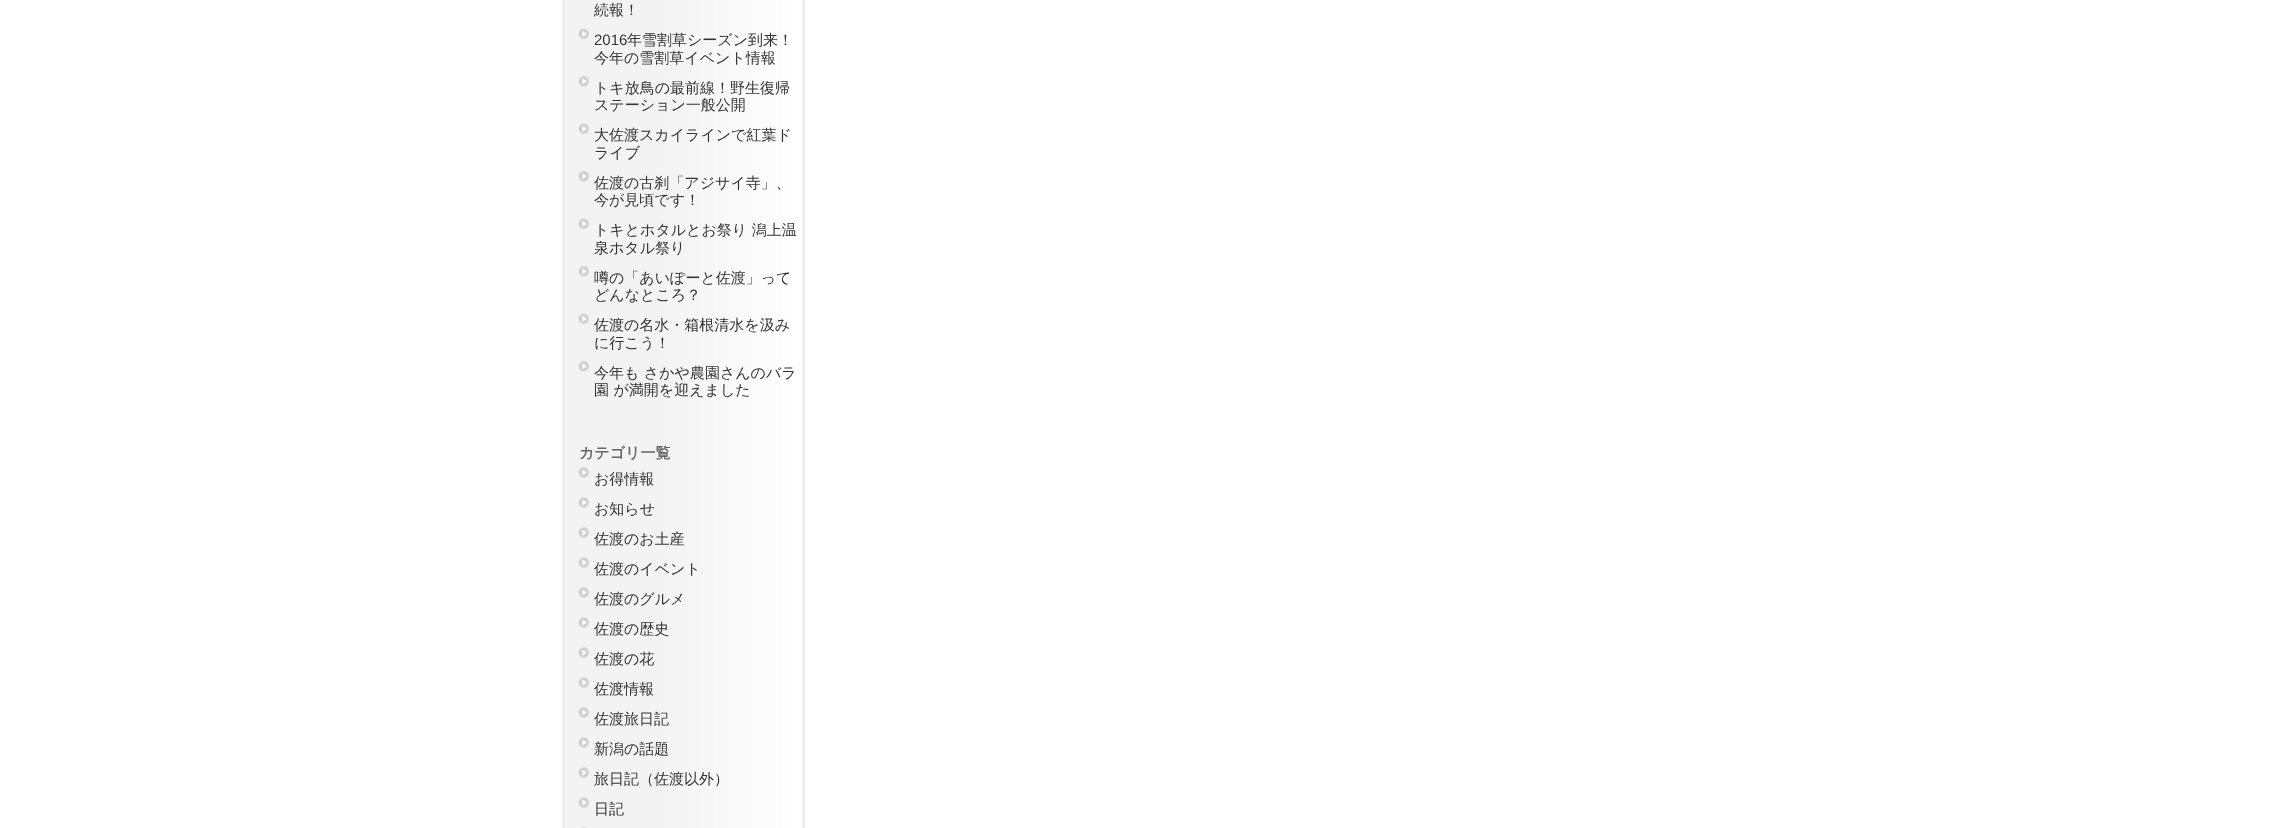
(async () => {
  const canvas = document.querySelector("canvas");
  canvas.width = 2294;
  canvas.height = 828;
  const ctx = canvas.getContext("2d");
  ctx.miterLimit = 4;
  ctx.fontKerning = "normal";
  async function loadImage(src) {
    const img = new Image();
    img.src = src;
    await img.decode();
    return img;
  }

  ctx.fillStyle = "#ffffff";
  ctx.fillRect(0, 0, 2294, 828);
  ctx.drawImage(await loadImage("img/1.png"), 562, 0, 244, 828);
  ctx.drawImage(await loadImage("img/2.png"), 578, 28, 11, 11);
  ctx.drawImage(await loadImage("img/3.png"), 578, 76, 11, 11);
  ctx.drawImage(await loadImage("img/2.png"), 578, 123, 11, 11);
  ctx.drawImage(await loadImage("img/3.png"), 578, 171, 11, 11);
  ctx.drawImage(await loadImage("img/2.png"), 578, 218, 11, 11);
  ctx.drawImage(await loadImage("img/3.png"), 578, 266, 11, 11);
  ctx.drawImage(await loadImage("img/4.png"), 578, 313, 11, 11);
  ctx.drawImage(await loadImage("img/3.png"), 578, 361, 11, 11);
  ctx.drawImage(await loadImage("img/5.png"), 578, 467, 11, 11);
  ctx.drawImage(await loadImage("img/5.png"), 578, 497, 11, 11);
  ctx.drawImage(await loadImage("img/5.png"), 578, 527, 11, 11);
  ctx.drawImage(await loadImage("img/5.png"), 578, 557, 11, 11);
  ctx.drawImage(await loadImage("img/5.png"), 578, 587, 11, 11);
  ctx.drawImage(await loadImage("img/5.png"), 578, 617, 11, 11);
  ctx.drawImage(await loadImage("img/5.png"), 578, 647, 11, 11);
  ctx.drawImage(await loadImage("img/5.png"), 578, 677, 11, 11);
  ctx.drawImage(await loadImage("img/5.png"), 578, 707, 11, 11);
  ctx.drawImage(await loadImage("img/5.png"), 578, 737, 11, 11);
  ctx.drawImage(await loadImage("img/5.png"), 578, 767, 11, 11);
  ctx.drawImage(await loadImage("img/5.png"), 578, 797, 11, 11);
  ctx.drawImage(await loadImage("img/6.png"), 580, 827, 7, 1);
  ctx.font = "500 15px WenQuanYi Zen Hei";
  ctx.fillStyle = "#333333";
  ctx.fillText("続報！", 594, 15);
  ctx.font = "15px Liberation Sans";
  ctx.fillText("2016", 594, 45);
  ctx.font = "500 15px WenQuanYi Zen Hei";
  for (const [text, x, y] of [
    ["年雪割草シーズン到来！", 627, 45],
    ["今年の雪割草イベント情報", 594, 63],
    ["トキ放鳥の最前線！野生復帰", 594, 93],
    ["ステーション一般公開", 594, 110],
    ["大佐渡スカイラインで紅葉ド", 594, 140],
    ["ライブ", 594, 158],
    ["佐渡の古刹「アジサイ寺」、", 594, 188],
    ["今が見頃です！", 594, 205],
    ["トキとホタルとお祭り 潟上温", 594, 235],
    ["泉ホタル祭り", 594, 253],
    ["噂の「あいぽーと佐渡」って", 594, 283],
    ["どんなところ？", 594, 300],
    ["佐渡の名水・箱根清水を汲み", 594, 330],
    ["に行こう！", 594, 348],
    ["今年も さかや農園さんのバラ", 594, 378],
    ["園 が満開を迎えました", 594, 395],
  ]) {
    ctx.fillText(text, x, y);
  }
  ctx.font = "bold 15px WenQuanYi Zen Hei";
  ctx.fillStyle = "#666666";
  ctx.fillText("カテゴリ一覧", 579, 458);
  ctx.font = "500 15px WenQuanYi Zen Hei";
  ctx.fillStyle = "#333333";
  for (const [text, x, y] of [
    ["お得情報", 594, 484],
    ["お知らせ", 594, 514],
    ["佐渡のお土産", 594, 544],
    ["佐渡のイベント", 594, 574],
    ["佐渡のグルメ", 594, 604],
    ["佐渡の歴史", 594, 634],
    ["佐渡の花", 594, 664],
    ["佐渡情報", 594, 694],
    ["佐渡旅日記", 594, 724],
    ["新潟の話題", 594, 754],
    ["旅日記（佐渡以外）", 594, 784],
    ["日記", 594, 814],
  ]) {
    ctx.fillText(text, x, y);
  }
})();
